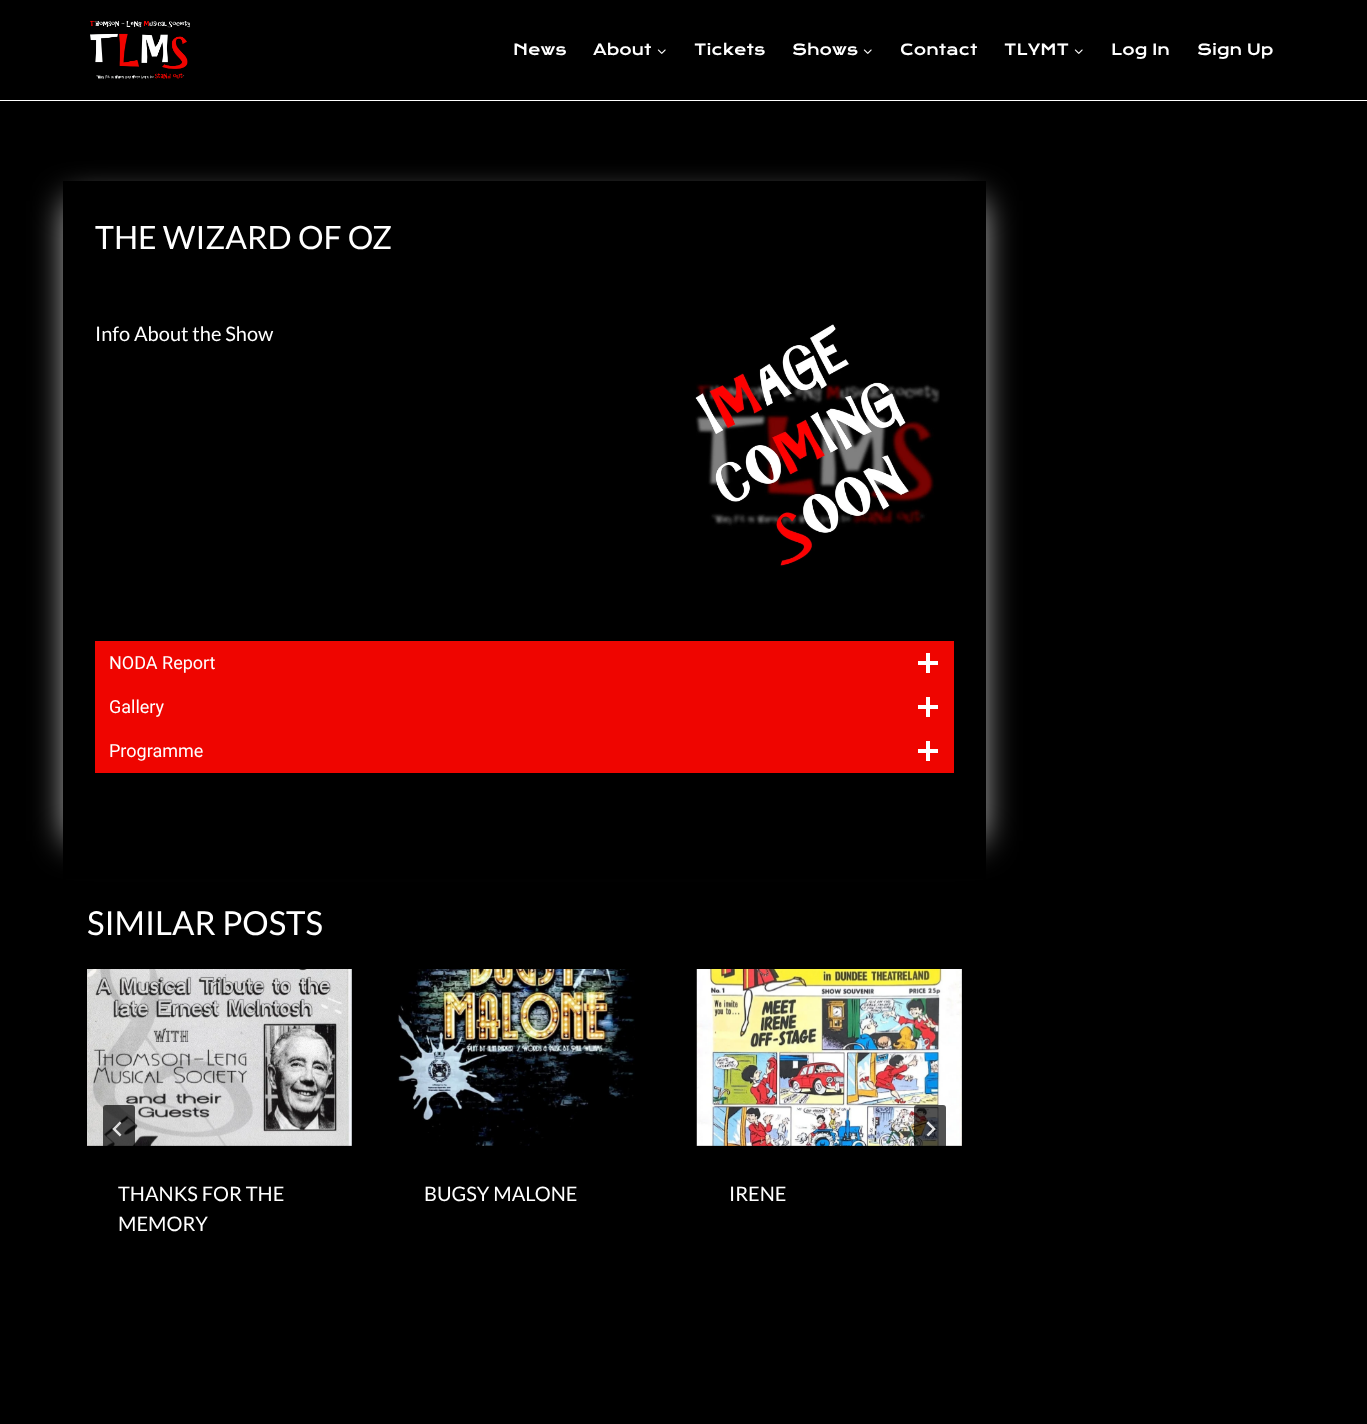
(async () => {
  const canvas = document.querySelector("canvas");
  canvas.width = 1367;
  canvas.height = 1424;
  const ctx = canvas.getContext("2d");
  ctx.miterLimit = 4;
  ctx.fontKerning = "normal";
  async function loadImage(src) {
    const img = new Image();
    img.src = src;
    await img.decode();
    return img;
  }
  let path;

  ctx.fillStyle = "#000000";
  ctx.fillRect(0, 0, 1367, 1424);
  ctx.fillStyle = "#ffffff";
  ctx.fillRect(0, 100, 1367, 1);
  ctx.drawImage(await loadImage("img/1.png"), 90, 21, 100, 58);
  ctx.drawImage(await loadImage("img/2.png"), 657, 49, 9, 5);
  ctx.drawImage(await loadImage("img/2.png"), 863, 49, 9, 5);
  ctx.drawImage(await loadImage("img/2.png"), 1074, 49, 9, 5);
  ctx.save();
  path = new Path2D("M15 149H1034V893H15ZM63 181H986V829H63Z");
  ctx.clip(path, "evenodd");
  ctx.fillStyle = "rgba(255, 255, 255, 0.83)";
  ctx.filter = "blur(17px)";
  ctx.beginPath();
  ctx.rect(67, 201, 915, 640);
  ctx.fill();
  ctx.filter = "none";
  ctx.restore();
  ctx.drawImage(await loadImage("img/3.png"), 695, 324, 245, 243);
  for (const [x, y, w, h, color] of [
    [95, 641, 859, 132, "#ef0500"],
    [926, 653, 4, 20, "#ffffff"],
    [918, 661, 20, 4, "#ffffff"],
    [926, 697, 4, 20, "#ffffff"],
    [918, 705, 20, 4, "#ffffff"],
    [926, 741, 4, 20, "#ffffff"],
    [918, 749, 20, 4, "#ffffff"],
    [63, 829, 923, 50, "#000000"],
  ]) {
    ctx.fillStyle = color;
    ctx.fillRect(x, y, w, h);
  }
  ctx.drawImage(await loadImage("img/6.png"), 87, 969, 265, 177);
  ctx.fillStyle = "rgba(0, 0, 0, 0.68)";
  ctx.beginPath();
  ctx.roundRect(103, 1105, 32, 48, 3);
  ctx.fill();
  ctx.drawImage(await loadImage("img/4.png"), 112, 1121, 10, 16);
  ctx.drawImage(await loadImage("img/8.png"), 696, 969, 266, 177);
  ctx.beginPath();
  ctx.roundRect(914, 1105, 32, 48, 3);
  ctx.fill();
  ctx.drawImage(await loadImage("img/5.png"), 926, 1121, 10, 16);
  ctx.drawImage(await loadImage("img/7.png"), 397, 969, 238, 177);
  ctx.font = "15px Krona One";
  ctx.fillStyle = "#ffffff";
  for (const [text, x, y] of [
    ["News", 513, 55],
    ["About", 593, 55],
    ["Tickets", 694, 55],
    ["Shows", 792, 55],
    ["Contact", 900, 55],
    ["TLYMT", 1004, 55],
    ["Log In", 1111, 55],
    ["Sign Up", 1197, 55],
  ]) {
    ctx.fillText(text, x, y);
  }
  ctx.font = "32px Lato";
  ctx.fillText("THE WIZARD OF OZ", 95, 249);
  ctx.font = "20px Lato";
  ctx.fillText("Info About the Show", 95, 341);
  ctx.font = "18px Roboto";
  for (const [text, x, y] of [
    ["NODA Report", 109, 669],
    ["Gallery", 109, 713],
    ["Programme", 109, 757],
  ]) {
    ctx.fillText(text, x, y);
  }
  ctx.font = "33px Lato";
  ctx.fillText("SIMILAR POSTS", 87, 935);
  ctx.font = "20px Lato";
  for (const [text, x, y] of [
    ["THANKS FOR THE", 118, 1201],
    ["MEMORY", 118, 1231],
    ["BUGSY MALONE", 424, 1201],
    ["IRENE", 729, 1201],
  ]) {
    ctx.fillText(text, x, y);
  }
})();
